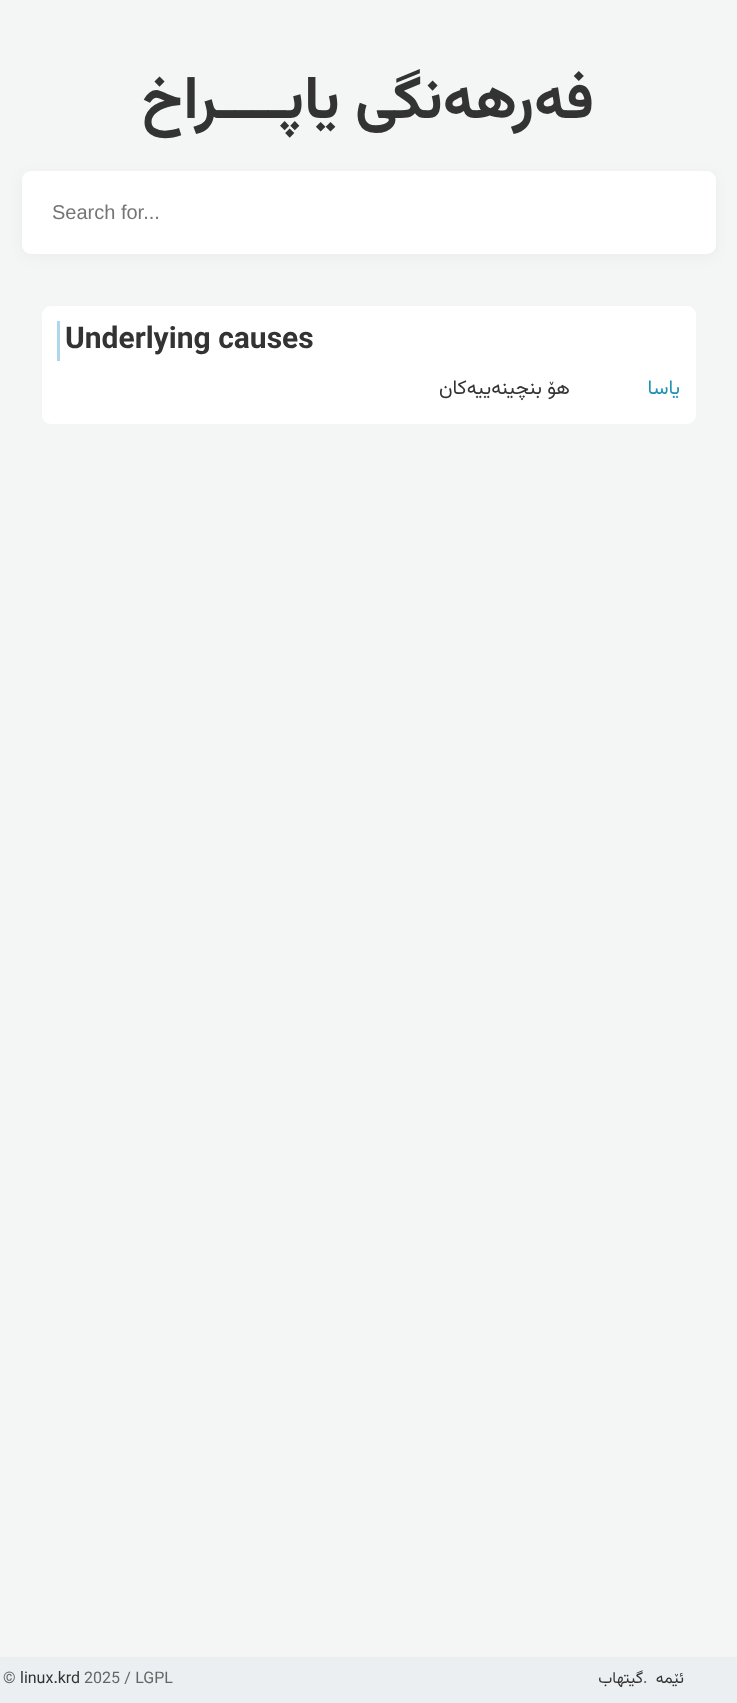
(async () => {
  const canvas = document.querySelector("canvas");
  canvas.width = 737;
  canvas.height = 1703;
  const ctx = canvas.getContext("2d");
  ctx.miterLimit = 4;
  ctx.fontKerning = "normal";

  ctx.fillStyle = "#f4f6f6";
  ctx.fillRect(0, 0, 737, 1703);
  ctx.fillStyle = "#ebebeb";
  ctx.filter = "blur(6px)";
  ctx.beginPath();
  ctx.roundRect(22, 174, 694, 83, 9);
  ctx.fill();
  ctx.filter = "none";
  ctx.fillStyle = "#ffffff";
  ctx.beginPath();
  ctx.roundRect(22, 171, 694, 83, 9);
  ctx.fill();
  ctx.beginPath();
  ctx.roundRect(42, 306, 654, 118, 9);
  ctx.fill();
  ctx.fillStyle = "#b0d6e9";
  ctx.fillRect(57, 321, 3, 40);
  ctx.fillStyle = "#eceff1";
  ctx.fillRect(0, 1657, 737, 46);
  ctx.direction = "rtl";
  ctx.font = "bold 60px Vazirmatn";
  ctx.fillStyle = "#333333";
  ctx.fillText("فەرهەنگی یاپــــراخ", 594, 118);
  ctx.direction = "ltr";
  ctx.font = "20px Liberation Sans";
  ctx.fillStyle = "#757575";
  ctx.fillText("Search for...", 52, 219);
  ctx.font = "bold 30px Vazirmatn";
  ctx.fillStyle = "#333333";
  ctx.fillText("Underlying causes", 65, 348);
  ctx.direction = "rtl";
  ctx.font = "20px Vazirmatn";
  ctx.fillText("هۆ بنچینەییەکان", 570, 394);
  ctx.fillStyle = "#1f92b4";
  ctx.fillText("یاسا", 680, 394);
  ctx.direction = "ltr";
  ctx.font = "16px Vazirmatn";
  ctx.fillStyle = "#666666";
  ctx.fillText("©", 3, 1683);
  ctx.fillStyle = "#333333";
  ctx.fillText("linux.krd", 20, 1683);
  ctx.fillStyle = "#666666";
  ctx.fillText("2025 / LGPL", 84, 1683);
  ctx.direction = "rtl";
  ctx.fillStyle = "#333333";
  ctx.fillText("گیتهاب", 643, 1683);
  ctx.direction = "ltr";
  ctx.fillStyle = "#666666";
  ctx.fillText(".", 643, 1683);
  ctx.direction = "rtl";
  ctx.fillStyle = "#333333";
  ctx.fillText("ئێمە", 684, 1683);
})();
